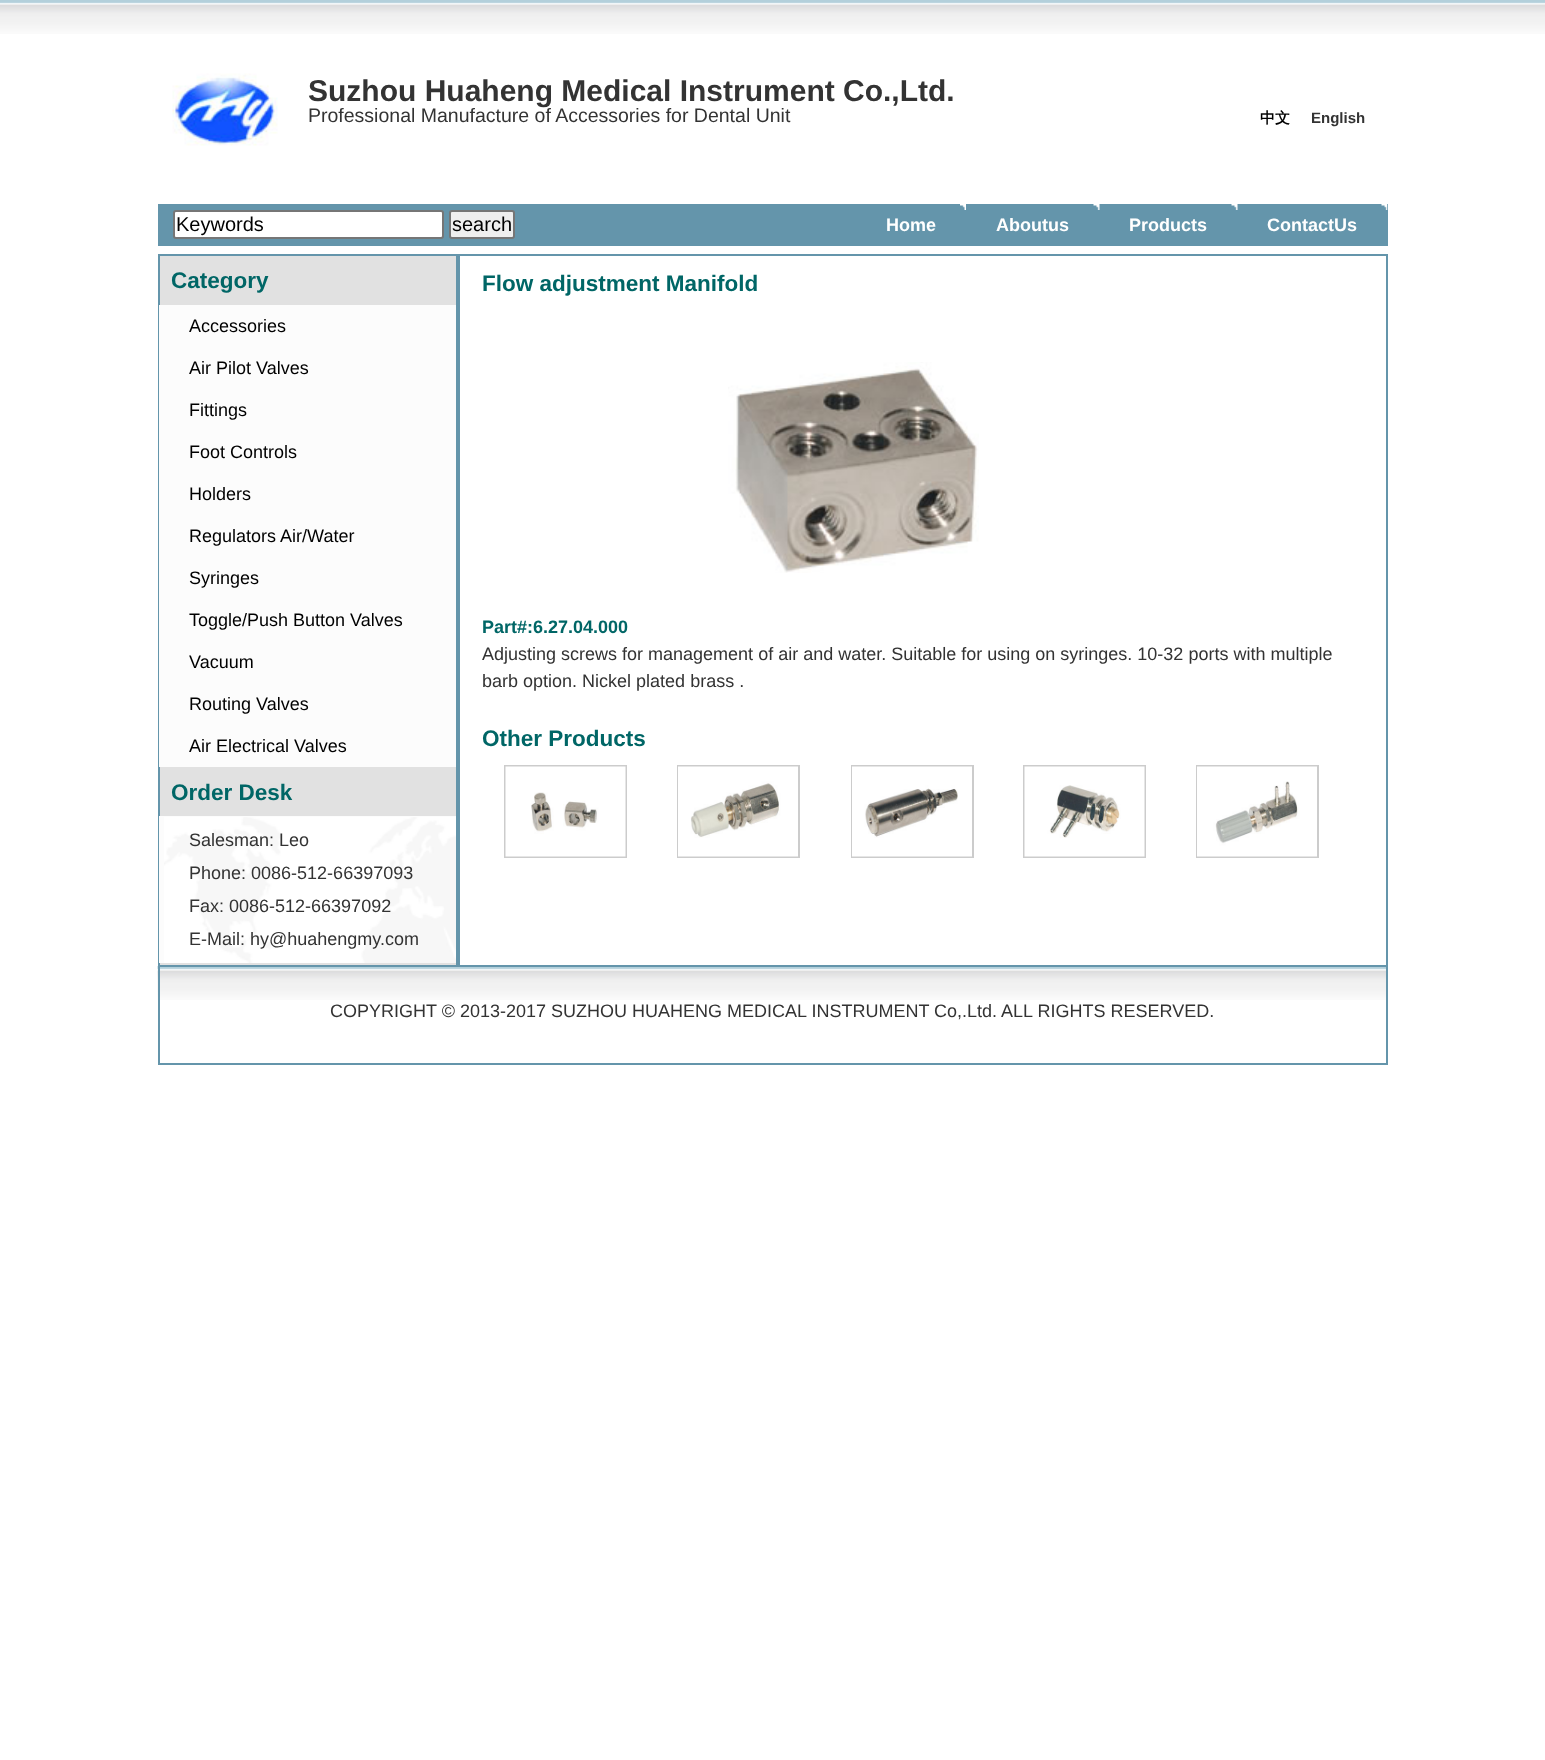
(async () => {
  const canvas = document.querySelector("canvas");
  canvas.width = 1545;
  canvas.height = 1760;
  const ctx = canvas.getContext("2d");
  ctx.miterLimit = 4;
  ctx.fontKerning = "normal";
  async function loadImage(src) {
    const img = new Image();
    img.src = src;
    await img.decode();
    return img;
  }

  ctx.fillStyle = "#ffffff";
  ctx.fillRect(0, 0, 1545, 1760);
  ctx.drawImage(await loadImage("img/1.png"), 0, 0, 1545, 34);
  ctx.drawImage(await loadImage("img/2.png"), 172, 73, 106, 73);
  ctx.fillStyle = "#6495ab";
  ctx.fillRect(158, 204, 1230, 42);
  ctx.fillStyle = "#ffffff";
  ctx.beginPath();
  ctx.roundRect(174, 211, 269, 27, 2);
  ctx.fill();
  ctx.strokeStyle = "#767676";
  ctx.lineWidth = 2;
  ctx.stroke();
  ctx.fillStyle = "#efefef";
  ctx.beginPath();
  ctx.roundRect(450, 211, 64, 27, 2);
  ctx.fill();
  ctx.stroke();
  ctx.drawImage(await loadImage("img/3.png"), 960, 204, 6, 6);
  ctx.drawImage(await loadImage("img/4.png"), 1093, 204, 7, 6);
  ctx.drawImage(await loadImage("img/4.png"), 1231, 204, 7, 6);
  ctx.drawImage(await loadImage("img/5.png"), 1381, 204, 7, 6);
  ctx.fillStyle = "#e1e1e1";
  ctx.fillRect(160, 256, 296, 709);
  ctx.drawImage(await loadImage("img/13.png"), 157, 966, 1229, 34);
  ctx.strokeStyle = "#6495ab";
  ctx.strokeRect(159, 966, 1228, 98);
  ctx.font = "bold 30px Liberation Sans";
  ctx.fillStyle = "#333333";
  ctx.fillText("Suzhou Huaheng Medical Instrument Co.,Ltd.", 308, 101);
  ctx.font = "19.5px Liberation Sans";
  ctx.fillText("Professional Manufacture of Accessories for Dental Unit", 308, 122);
  ctx.font = "bold 15px WenQuanYi Zen Hei";
  ctx.fillStyle = "#000000";
  ctx.fillText("中文", 1260, 123);
  ctx.font = "bold 15px Liberation Sans";
  ctx.fillStyle = "#333333";
  ctx.fillText("English", 1311, 123);
  ctx.font = "20px Liberation Sans";
  ctx.fillStyle = "#000000";
  ctx.fillText("Keywords", 176, 231);
  ctx.fillText("search", 452, 231);
  ctx.font = "bold 18px Liberation Sans";
  ctx.fillStyle = "#ffffff";
  for (const [text, x, y] of [
    ["Home", 886, 231],
    ["Aboutus", 996, 231],
    ["Products", 1129, 231],
    ["ContactUs", 1267, 231],
  ]) {
    ctx.fillText(text, x, y);
  }
  ctx.font = "18px Liberation Sans";
  ctx.fillStyle = "#333333";
  ctx.fillText("COPYRIGHT © 2013-2017 SUZHOU HUAHENG MEDICAL INSTRUMENT Co,.Ltd. ALL RIGHTS RESERVED.", 330, 1017);
  ctx.save();
  ctx.beginPath();
  ctx.rect(158, 36, 1230, 929);
  ctx.clip();
  ctx.strokeRect(459, 255, 928, 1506);
  ctx.restore();
  ctx.drawImage(await loadImage("img/7.png"), 728, 362, 251, 211);
  ctx.strokeStyle = "#cccccc";
  ctx.strokeRect(1197, 766, 121, 91);
  ctx.drawImage(await loadImage("img/12.png"), 1197, 766, 120, 91);
  ctx.strokeRect(1024, 766, 121, 91);
  ctx.drawImage(await loadImage("img/11.png"), 1024, 766, 121, 91);
  ctx.strokeRect(852, 766, 121, 91);
  ctx.drawImage(await loadImage("img/10.png"), 852, 766, 120, 91);
  ctx.strokeRect(678, 766, 121, 91);
  ctx.drawImage(await loadImage("img/9.png"), 678, 766, 120, 91);
  ctx.strokeRect(505, 766, 121, 91);
  ctx.drawImage(await loadImage("img/8.png"), 505, 766, 121, 91);
  ctx.font = "bold 22.5px Liberation Sans";
  ctx.fillStyle = "#006666";
  ctx.fillText("Other Products", 482, 746);
  ctx.font = "18px Liberation Sans";
  ctx.fillStyle = "#333333";
  ctx.fillText("barb option. Nickel plated brass .", 482, 687);
  ctx.fillText("Adjusting screws for management of air and water. Suitable for using on syringes. 10-32 ports with multiple", 482, 660);
  ctx.font = "bold 18px Liberation Sans";
  ctx.fillStyle = "#006666";
  ctx.fillText("Part#:6.27.04.000", 482, 633);
  ctx.font = "bold 22.5px Liberation Sans";
  ctx.fillText("Flow adjustment Manifold", 482, 291);
  ctx.save();
  ctx.beginPath();
  ctx.rect(158, 36, 1230, 929);
  ctx.clip();
  ctx.strokeStyle = "#6495ab";
  ctx.strokeRect(159, 255, 298, 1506);
  ctx.restore();
  ctx.fillStyle = "#fcfcfc";
  ctx.fillRect(159, 816, 297, 147);
  ctx.drawImage(await loadImage("img/6.png"), 164, 817, 292, 146);
  ctx.font = "18px Liberation Sans";
  ctx.fillStyle = "#333333";
  for (const [text, x, y] of [
    ["E-Mail: hy@huahengmy.com", 189, 945],
    ["Fax: 0086-512-66397092", 189, 912],
    ["Phone: 0086-512-66397093", 189, 879],
    ["Salesman: Leo", 189, 846],
  ]) {
    ctx.fillText(text, x, y);
  }
  ctx.font = "bold 22.5px Liberation Sans";
  ctx.fillStyle = "#006666";
  ctx.fillText("Order Desk", 171, 800);
  ctx.fillStyle = "#fcfcfc";
  ctx.fillRect(159, 305, 297, 462);
  ctx.font = "18px Liberation Sans";
  ctx.fillStyle = "#000000";
  for (const [text, x, y] of [
    ["Air Electrical Valves", 189, 752],
    ["Routing Valves", 189, 710],
    ["Vacuum", 189, 668],
    ["Toggle/Push Button Valves", 189, 626],
    ["Syringes", 189, 584],
    ["Regulators Air/Water", 189, 542],
    ["Holders", 189, 500],
    ["Foot Controls", 189, 458],
    ["Fittings", 189, 416],
    ["Air Pilot Valves", 189, 374],
    ["Accessories", 189, 332],
  ]) {
    ctx.fillText(text, x, y);
  }
  ctx.font = "bold 22.5px Liberation Sans";
  ctx.fillStyle = "#006666";
  ctx.fillText("Category", 171, 288);
})();
